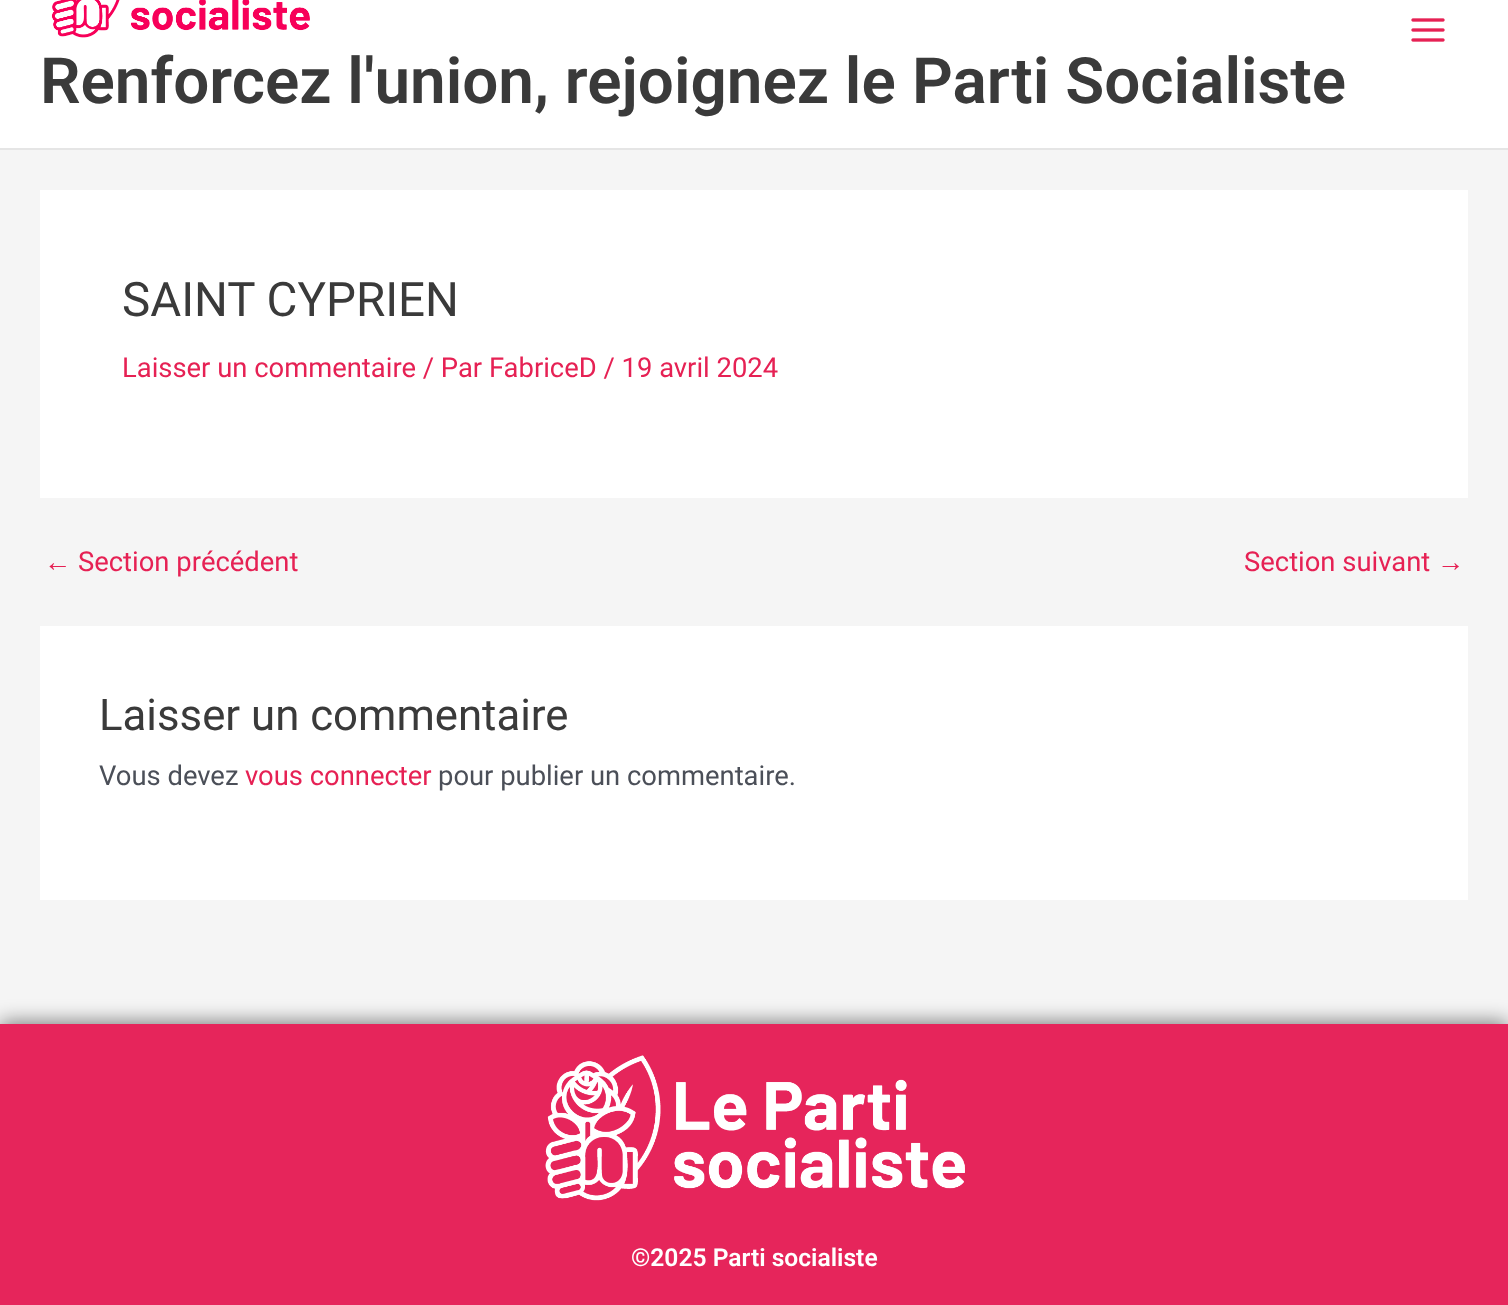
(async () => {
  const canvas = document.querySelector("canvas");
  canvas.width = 1508;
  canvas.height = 1305;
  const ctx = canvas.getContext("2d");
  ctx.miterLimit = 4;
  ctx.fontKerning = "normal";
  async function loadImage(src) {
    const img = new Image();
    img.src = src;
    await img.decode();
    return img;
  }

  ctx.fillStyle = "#f5f5f5";
  ctx.fillRect(0, 0, 1508, 1305);
  ctx.fillStyle = "#ffffff";
  ctx.fillRect(0, 0, 1508, 148);
  ctx.fillStyle = "#e5e5e5";
  ctx.fillRect(0, 148, 1508, 2);
  ctx.drawImage(await loadImage("img/1.png"), 1411, 18, 34, 24);
  ctx.drawImage(await loadImage("img/2.png"), 51, 0, 259, 38);
  ctx.fillStyle = "#ffffff";
  ctx.fillRect(40, 190, 1428, 308);
  ctx.fillRect(40, 626, 1428, 274);
  ctx.fillStyle = "rgba(0, 0, 0, 0.5)";
  ctx.filter = "blur(10px)";
  ctx.beginPath();
  ctx.rect(0, 1022, 1508, 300);
  ctx.fill();
  ctx.filter = "none";
  ctx.fillStyle = "#e6255b";
  ctx.fillRect(0, 1024, 1508, 281);
  ctx.drawImage(await loadImage("img/3.png"), 545, 1055, 420, 146);
  ctx.font = "600 63.8px Roboto";
  ctx.fillStyle = "#3a3a3a";
  ctx.fillText("Renforcez l'union, rejoignez le", 40, 103);
  ctx.fillText("Parti Socialiste", 912, 103);
  ctx.font = "47.5px Roboto";
  ctx.fillText("SAINT CYPRIEN", 122, 316);
  ctx.font = "27.4px Roboto";
  ctx.fillStyle = "#e62154";
  ctx.fillText("Laisser un commentaire / Par FabriceD / 19 avril 2024", 122, 377);
  ctx.font = "27.4px Liberation Sans";
  ctx.fillText("←", 44, 571);
  ctx.font = "27.4px Roboto";
  ctx.fillText("Section précédent", 78, 571);
  ctx.fillText("Section suivant", 1244, 571);
  ctx.font = "27.4px Liberation Sans";
  ctx.fillText("→", 1437, 571);
  ctx.font = "43.75px Roboto";
  ctx.fillStyle = "#3a3a3a";
  ctx.fillText("Laisser un commentaire", 99, 730);
  ctx.font = "27.4px Roboto";
  ctx.fillStyle = "#4b4f58";
  ctx.fillText("Vous devez", 99, 785);
  ctx.fillStyle = "#e62154";
  ctx.fillText("vous connecter", 245, 785);
  ctx.fillStyle = "#4b4f58";
  ctx.fillText("pour publier un commentaire.", 438, 785);
  ctx.font = "600 24.6px Roboto";
  ctx.fillStyle = "#ffffff";
  ctx.fillText("©2025 Parti socialiste", 631, 1266);
})();
